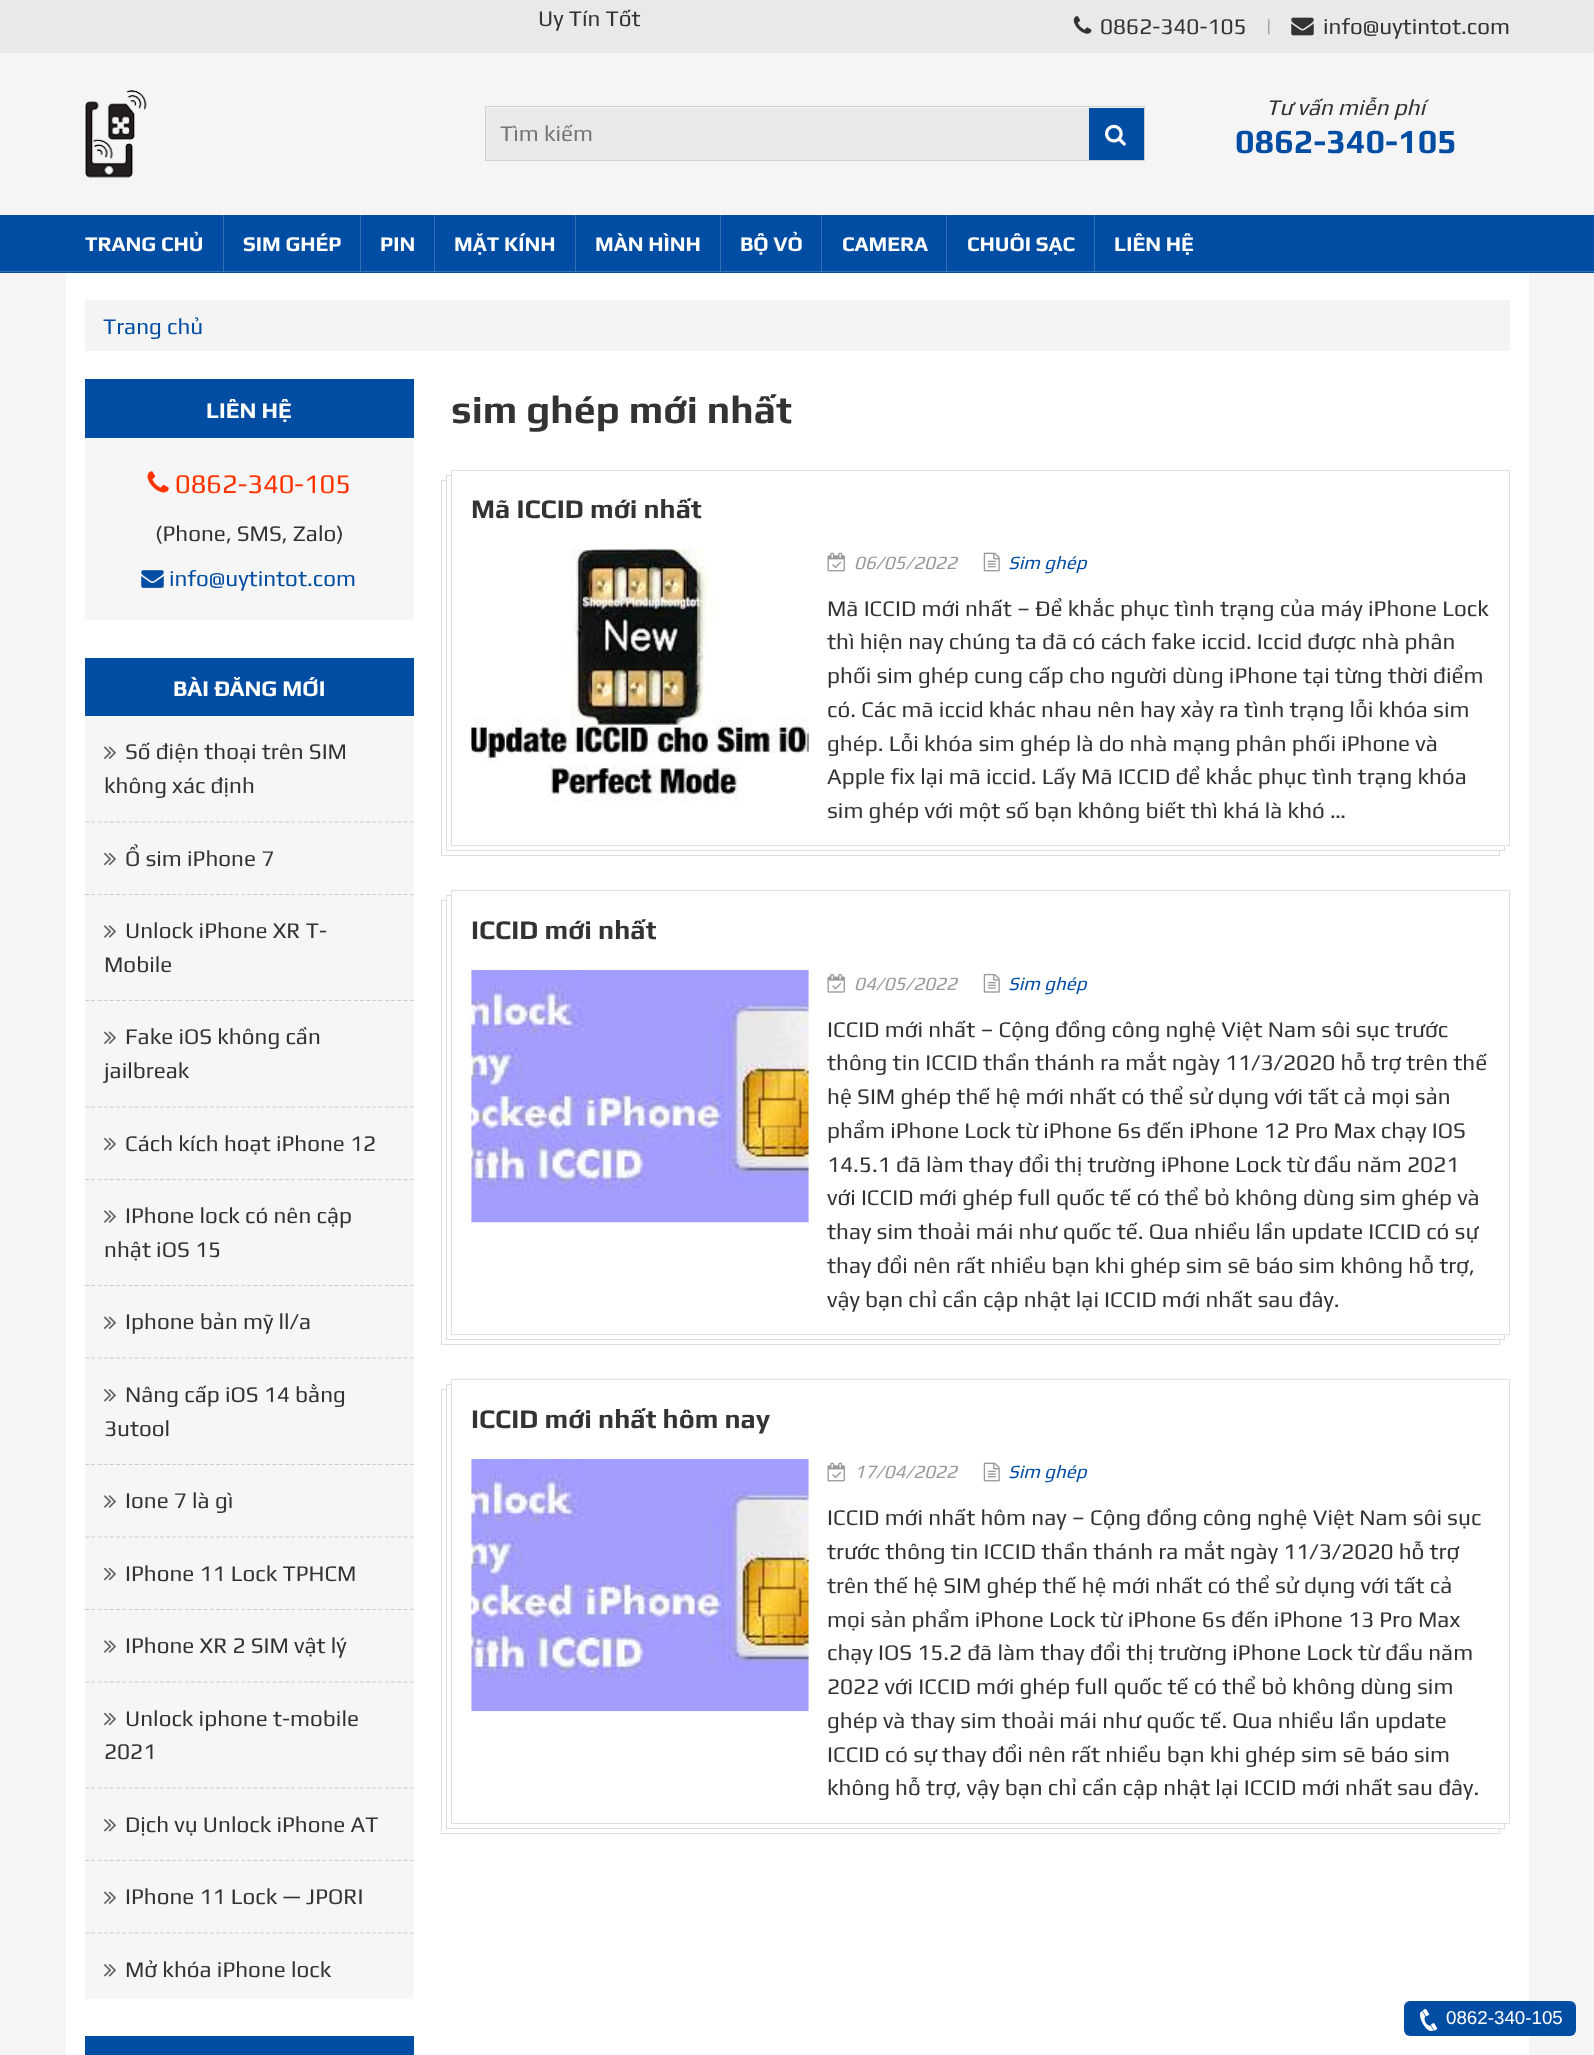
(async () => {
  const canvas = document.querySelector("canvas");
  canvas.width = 1594;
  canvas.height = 2055;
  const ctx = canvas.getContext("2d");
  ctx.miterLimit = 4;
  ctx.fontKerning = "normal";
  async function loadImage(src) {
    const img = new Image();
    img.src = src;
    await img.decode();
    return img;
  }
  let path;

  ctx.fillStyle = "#f5f5f5";
  ctx.fillRect(0, 0, 1594, 2055);
  ctx.fillStyle = "#e9e9e9";
  ctx.fillRect(0, 0, 1594, 53);
  ctx.drawImage(await loadImage("img/1.png"), 1073, 16, 19, 18);
  ctx.drawImage(await loadImage("img/2.png"), 1291, 17, 23, 19);
  ctx.drawImage(await loadImage("img/3.png"), 85, 90, 62, 88);
  ctx.strokeStyle = "#d0d0d0";
  ctx.strokeRect(485.5, 106.5, 659, 54);
  ctx.fillRect(486, 108, 603, 52);
  ctx.fillStyle = "#004da3";
  ctx.fillRect(1089, 108, 55, 52);
  ctx.drawImage(await loadImage("img/4.png"), 1105, 124, 21, 22);
  for (const [x, y, w, h, color] of [
    [0, 215, 1594, 58, "#004da3"],
    [0, 271, 1594, 1, "#3371b5"],
    [223, 215, 1, 56, "#3371b5"],
    [360, 215, 1, 56, "#3371b5"],
    [434, 215, 1, 56, "#3371b5"],
    [575, 215, 1, 56, "#3371b5"],
    [720, 215, 1, 56, "#3371b5"],
    [821, 215, 1, 56, "#3371b5"],
    [946, 215, 1, 56, "#3371b5"],
    [1094, 215, 1, 56, "#3371b5"],
    [66, 273, 1463, 1782, "#ffffff"],
    [85, 300, 1425, 51, "#f4f4f4"],
    [85, 379, 329, 59, "#004da3"],
    [85, 438, 329, 182, "#f6f6f6"],
  ]) {
    ctx.fillStyle = color;
    ctx.fillRect(x, y, w, h);
  }
  ctx.drawImage(await loadImage("img/5.png"), 147, 471, 22, 22);
  ctx.drawImage(await loadImage("img/6.png"), 141, 570, 23, 18);
  ctx.fillStyle = "#004da3";
  ctx.fillRect(85, 658, 329, 58);
  ctx.fillStyle = "#f6f6f6";
  ctx.fillRect(85, 716, 329, 1283);
  path = new Path2D("M85 822H414");
  ctx.strokeStyle = "#cccccc";
  ctx.lineWidth = 1.2;
  ctx.setLineDash([3.75, 2.5]);
  ctx.stroke(path);
  ctx.drawImage(await loadImage("img/7.png"), 104, 746, 12, 13);
  path = new Path2D("M85 894.5H414");
  ctx.stroke(path);
  ctx.drawImage(await loadImage("img/8.png"), 104, 852, 12, 14);
  path = new Path2D("M85 1000.5H414");
  ctx.stroke(path);
  ctx.drawImage(await loadImage("img/9.png"), 104, 925, 12, 13);
  path = new Path2D("M85 1107H414");
  ctx.stroke(path);
  ctx.drawImage(await loadImage("img/7.png"), 104, 1031, 12, 13);
  path = new Path2D("M85 1179.5H414");
  ctx.stroke(path);
  ctx.drawImage(await loadImage("img/8.png"), 104, 1137, 12, 14);
  path = new Path2D("M85 1285.5H414");
  ctx.stroke(path);
  ctx.drawImage(await loadImage("img/9.png"), 104, 1210, 12, 13);
  path = new Path2D("M85 1358H414");
  ctx.stroke(path);
  ctx.drawImage(await loadImage("img/7.png"), 104, 1316, 12, 13);
  path = new Path2D("M85 1464.5H414");
  ctx.stroke(path);
  ctx.drawImage(await loadImage("img/10.png"), 104, 1389, 12, 13);
  path = new Path2D("M85 1537H414");
  ctx.stroke(path);
  ctx.drawImage(await loadImage("img/9.png"), 104, 1495, 12, 13);
  path = new Path2D("M85 1609.5H414");
  ctx.stroke(path);
  ctx.drawImage(await loadImage("img/8.png"), 104, 1567, 12, 14);
  path = new Path2D("M85 1682H414");
  ctx.stroke(path);
  ctx.drawImage(await loadImage("img/9.png"), 104, 1640, 12, 13);
  path = new Path2D("M85 1788H414");
  ctx.stroke(path);
  ctx.drawImage(await loadImage("img/8.png"), 104, 1712, 12, 14);
  path = new Path2D("M85 1860.5H414");
  ctx.stroke(path);
  ctx.drawImage(await loadImage("img/10.png"), 104, 1819, 12, 13);
  path = new Path2D("M85 1933H414");
  ctx.stroke(path);
  ctx.drawImage(await loadImage("img/7.png"), 104, 1891, 12, 13);
  ctx.drawImage(await loadImage("img/10.png"), 104, 1964, 12, 13);
  ctx.fillStyle = "#004da3";
  ctx.fillRect(85, 2036, 329, 19);
  ctx.strokeStyle = "#dedede";
  ctx.lineWidth = 1;
  ctx.setLineDash([]);
  ctx.strokeRect(441.5, 480.5, 1058, 375);
  ctx.fillStyle = "#ffffff";
  ctx.fillRect(447, 480, 1053, 370);
  ctx.strokeRect(446.5, 475.5, 1058, 375);
  ctx.fillRect(452, 475, 1053, 370);
  ctx.strokeStyle = "#e0e0e0";
  ctx.strokeRect(451.5, 470.5, 1058, 375);
  ctx.drawImage(await loadImage("img/11.png"), 471, 548, 338, 253);
  ctx.drawImage(await loadImage("img/12.png"), 827, 552, 18, 20);
  ctx.drawImage(await loadImage("img/13.png"), 983, 552, 17, 20);
  ctx.strokeStyle = "#dedede";
  ctx.strokeRect(441.5, 900.5, 1058, 444);
  ctx.fillRect(447, 900, 1053, 439);
  ctx.strokeRect(446.5, 895.5, 1058, 444);
  ctx.fillRect(452, 895, 1053, 439);
  ctx.strokeStyle = "#e0e0e0";
  ctx.strokeRect(451.5, 890.5, 1058, 444);
  ctx.drawImage(await loadImage("img/14.png"), 471, 970, 338, 253);
  ctx.drawImage(await loadImage("img/15.png"), 827, 973, 18, 20);
  ctx.drawImage(await loadImage("img/16.png"), 983, 973, 17, 20);
  ctx.strokeStyle = "#dedede";
  ctx.strokeRect(441.5, 1389.5, 1058, 444);
  ctx.fillRect(447, 1389, 1053, 439);
  ctx.strokeRect(446.5, 1384.5, 1058, 444);
  ctx.fillRect(452, 1384, 1053, 439);
  ctx.strokeStyle = "#e0e0e0";
  ctx.strokeRect(451.5, 1379.5, 1058, 444);
  ctx.drawImage(await loadImage("img/17.png"), 471, 1458, 338, 254);
  ctx.drawImage(await loadImage("img/12.png"), 827, 1462, 18, 20);
  ctx.drawImage(await loadImage("img/13.png"), 983, 1462, 17, 20);
  ctx.fillStyle = "#004da3";
  ctx.beginPath();
  ctx.roundRect(1404, 2001, 172, 35, 6);
  ctx.fill();
  ctx.drawImage(await loadImage("img/18.png"), 1420, 2009, 18, 22);
  ctx.font = "22.5px Play";
  ctx.fillStyle = "#333333";
  ctx.fillText("Uy Tín Tốt", 538, 26);
  ctx.fillText("0862-340-105", 1100, 34);
  ctx.fillStyle = "#999999";
  ctx.fillText("|", 1265, 34);
  ctx.fillStyle = "#333333";
  ctx.fillText("info@uytintot.com", 1323, 34);
  ctx.fillStyle = "#757575";
  ctx.fillText("Tìm kiếm", 500, 141);
  ctx.font = "italic 22.5px Play";
  ctx.fillStyle = "#333333";
  ctx.fillText("Tư vấn miễn phí", 1266, 115);
  ctx.font = "bold 33.75px Play";
  ctx.fillStyle = "#004da3";
  ctx.fillText("0862-340-105", 1235, 153);
  ctx.font = "bold 21px Play";
  ctx.fillStyle = "#ffffff";
  for (const [text, x, y] of [
    ["TRANG CHỦ", 85, 251],
    ["SIM GHÉP", 243, 251],
    ["PIN", 380, 251],
    ["MẶT KÍNH", 454, 251],
    ["MÀN HÌNH", 595, 251],
    ["BỘ VỎ", 740, 251],
    ["CAMERA", 842, 251],
    ["CHUÔI SẠC", 967, 251],
    ["LIÊN HỆ", 1114, 251],
  ]) {
    ctx.fillText(text, x, y);
  }
  ctx.font = "22.5px Play";
  ctx.fillStyle = "#004da3";
  ctx.fillText("Trang chủ", 103, 334);
  ctx.font = "bold 22.5px Play";
  ctx.fillStyle = "#ffffff";
  ctx.fillText("LIÊN HỆ", 206, 418);
  ctx.font = "27px Play";
  ctx.fillStyle = "#ff3300";
  ctx.fillText("0862-340-105", 175, 493);
  ctx.font = "22.5px Play";
  ctx.fillStyle = "#333333";
  ctx.fillText("(Phone, SMS, Zalo)", 155, 541);
  ctx.fillStyle = "#004da3";
  ctx.fillText("info@uytintot.com", 169, 586);
  ctx.font = "bold 22.5px Play";
  ctx.fillStyle = "#ffffff";
  ctx.fillText("BÀI ĐĂNG MỚI", 173, 696);
  ctx.font = "22.5px Play";
  ctx.fillStyle = "#333333";
  for (const [text, x, y] of [
    ["Số điện thoại trên SIM", 125, 759],
    ["không xác định", 104, 793],
    ["Ổ sim iPhone 7", 125, 866],
    ["Unlock iPhone XR T-", 125, 938],
    ["Mobile", 104, 972],
    ["Fake iOS không cần", 125, 1044],
    ["jailbreak", 104, 1078],
    ["Cách kích hoạt iPhone 12", 125, 1151],
    ["IPhone lock có nên cập", 125, 1223],
    ["nhật iOS 15", 104, 1257],
    ["Iphone bản mỹ ll/a", 125, 1329],
    ["Nâng cấp iOS 14 bằng", 125, 1402],
    ["3utool", 104, 1436],
    ["Ione 7 là gì", 125, 1508],
    ["IPhone 11 Lock TPHCM", 125, 1581],
    ["IPhone XR 2 SIM vật lý", 125, 1653],
    ["Unlock iphone t-mobile", 125, 1726],
    ["2021", 104, 1759],
    ["Dịch vụ Unlock iPhone AT", 125, 1832],
    ["IPhone 11 Lock — JPORI", 125, 1904],
    ["Mở khóa iPhone lock", 125, 1977],
  ]) {
    ctx.fillText(text, x, y);
  }
  ctx.font = "bold 39.4px Play";
  ctx.fillText("sim ghép mới nhất", 451, 423);
  ctx.font = "bold 27px Play";
  ctx.fillText("Mã ICCID mới nhất", 471, 518);
  ctx.font = "italic 18.75px Play";
  ctx.fillStyle = "#999999";
  ctx.fillText("06/05/2022", 854, 569);
  ctx.fillStyle = "#004da3";
  ctx.fillText("Sim ghép", 1008, 569);
  ctx.font = "22.5px Play";
  ctx.fillStyle = "#333333";
  for (const [text, x, y] of [
    ["Mã ICCID mới nhất – Để khắc phục tình trạng của máy iPhone Lock", 827, 616],
    ["thì hiện nay chúng ta đã có cách fake iccid. Iccid được nhà phân", 827, 649],
    ["phối sim ghép cung cấp cho người dùng iPhone tại từng thời điểm", 827, 683],
    ["có. Các mã iccid khác nhau nên hay xảy ra tình trạng lỗi khóa sim", 827, 717],
    ["ghép. Lỗi khóa sim ghép là do nhà mạng phân phối iPhone và", 827, 751],
    ["Apple fix lại mã iccid. Lấy Mã ICCID để khắc phục tình trạng khóa", 827, 784],
    ["sim ghép với một số bạn không biết thì khá là khó …", 827, 818],
  ]) {
    ctx.fillText(text, x, y);
  }
  ctx.font = "bold 27px Play";
  ctx.fillText("ICCID mới nhất", 471, 939);
  ctx.font = "italic 18.75px Play";
  ctx.fillStyle = "#999999";
  ctx.fillText("04/05/2022", 854, 990);
  ctx.fillStyle = "#004da3";
  ctx.fillText("Sim ghép", 1008, 990);
  ctx.font = "22.5px Play";
  ctx.fillStyle = "#333333";
  for (const [text, x, y] of [
    ["ICCID mới nhất – Cộng đồng công nghệ Việt Nam sôi sục trước", 827, 1037],
    ["thông tin ICCID thần thánh ra mắt ngày 11/3/2020 hỗ trợ trên thế", 827, 1070],
    ["hệ SIM ghép thế hệ mới nhất có thể sử dụng với tất cả mọi sản", 827, 1104],
    ["phẩm iPhone Lock từ iPhone 6s đến iPhone 12 Pro Max chạy IOS", 827, 1138],
    ["14.5.1 đã làm thay đổi thị trường iPhone Lock từ đầu năm 2021", 827, 1172],
    ["với ICCID mới ghép full quốc tế có thể bỏ không dùng sim ghép và", 827, 1205],
    ["thay sim thoải mái như quốc tế. Qua nhiều lần update ICCID có sự", 827, 1239],
    ["thay đổi nên rất nhiều bạn khi ghép sim sẽ báo sim không hỗ trợ,", 827, 1273],
    ["vậy bạn chỉ cần cập nhật lại ICCID mới nhất sau đây.", 827, 1307],
  ]) {
    ctx.fillText(text, x, y);
  }
  ctx.font = "bold 27px Play";
  ctx.fillText("ICCID mới nhất hôm nay", 471, 1428);
  ctx.font = "italic 18.75px Play";
  ctx.fillStyle = "#999999";
  ctx.fillText("17/04/2022", 854, 1478);
  ctx.fillStyle = "#004da3";
  ctx.fillText("Sim ghép", 1008, 1478);
  ctx.font = "22.5px Play";
  ctx.fillStyle = "#333333";
  for (const [text, x, y] of [
    ["ICCID mới nhất hôm nay – Cộng đồng công nghệ Việt Nam sôi sục", 827, 1525],
    ["trước thông tin ICCID thần thánh ra mắt ngày 11/3/2020 hỗ trợ", 827, 1559],
    ["trên thế hệ SIM ghép thế hệ mới nhất có thể sử dụng với tất cả", 827, 1593],
    ["mọi sản phẩm iPhone Lock từ iPhone 6s đến iPhone 13 Pro Max", 827, 1627],
    ["chạy IOS 15.2 đã làm thay đổi thị trường iPhone Lock từ đầu năm", 827, 1660],
    ["2022 với ICCID mới ghép full quốc tế có thể bỏ không dùng sim", 827, 1694],
    ["ghép và thay sim thoải mái như quốc tế. Qua nhiều lần update", 827, 1728],
    ["ICCID có sự thay đổi nên rất nhiều bạn khi ghép sim sẽ báo sim", 827, 1762],
    ["không hỗ trợ, vậy bạn chỉ cần cập nhật lại ICCID mới nhất sau đây.", 827, 1795],
  ]) {
    ctx.fillText(text, x, y);
  }
  ctx.font = "18.75px Liberation Sans";
  ctx.fillStyle = "#ffffff";
  ctx.fillText("0862-340-105", 1446, 2024);
})();
